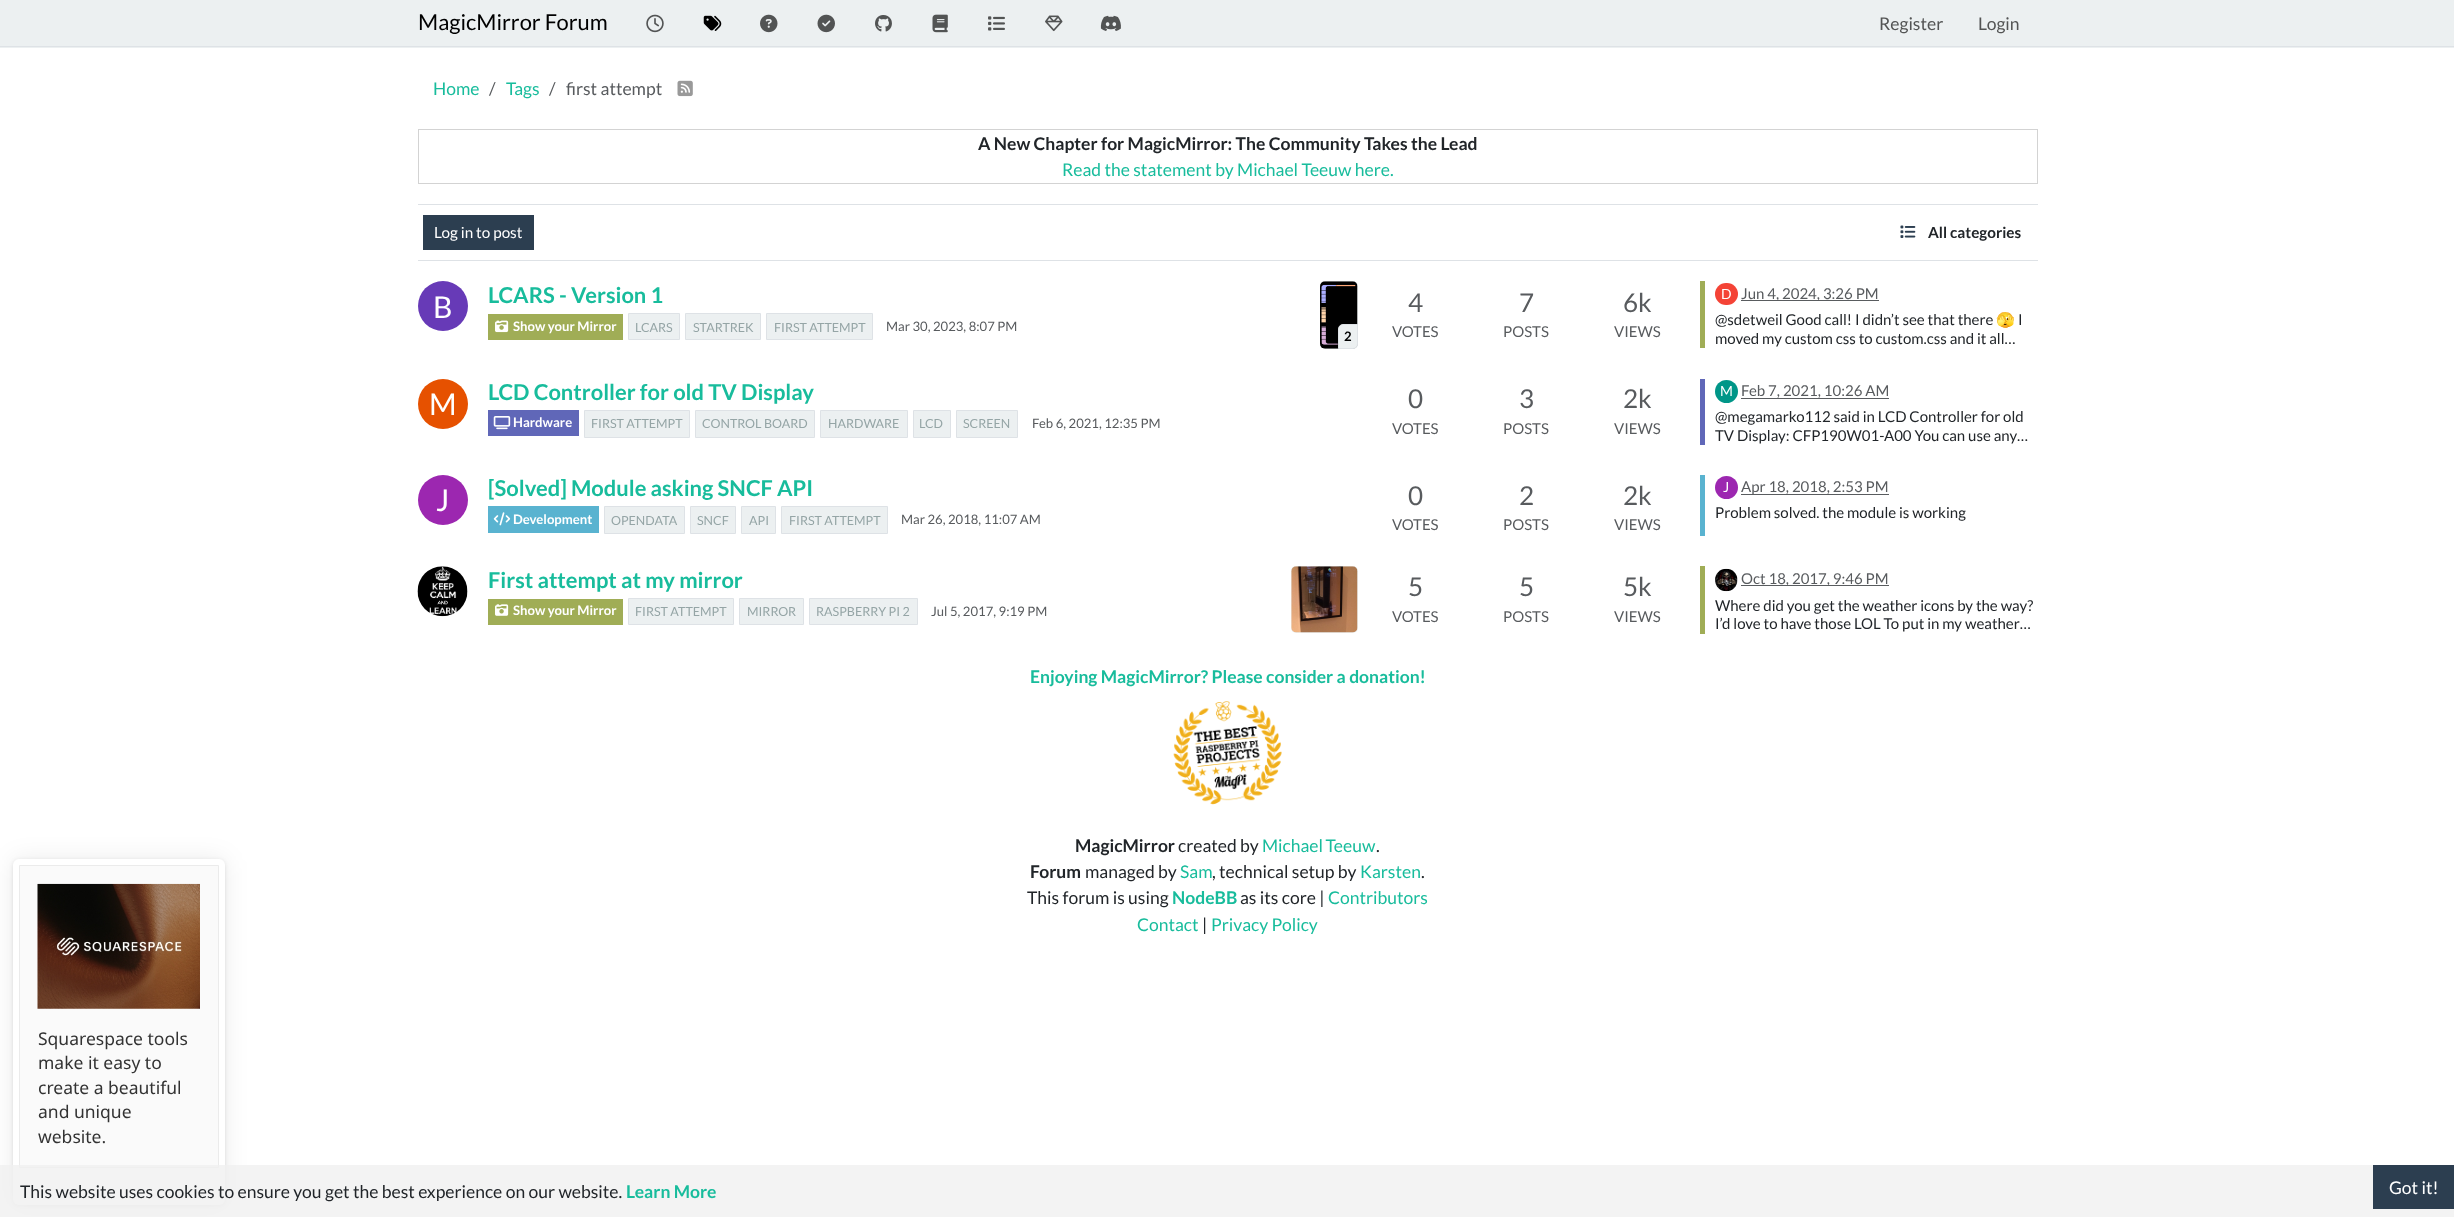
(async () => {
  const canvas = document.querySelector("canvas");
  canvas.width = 2454;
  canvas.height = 1217;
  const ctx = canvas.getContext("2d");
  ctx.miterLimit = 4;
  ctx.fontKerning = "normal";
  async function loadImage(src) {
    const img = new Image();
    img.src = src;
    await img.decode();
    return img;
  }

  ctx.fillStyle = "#ffffff";
  ctx.fillRect(0, 0, 2454, 1217);
  ctx.fillStyle = "#ecf0f1";
  ctx.fillRect(0, 0, 2454, 48);
  ctx.fillStyle = "#dee2e6";
  ctx.fillRect(0, 46, 2454, 1);
  ctx.drawImage(await loadImage("img/1.png"), 646, 14, 18, 19);
  ctx.drawImage(await loadImage("img/2.png"), 703, 15, 19, 16);
  ctx.drawImage(await loadImage("img/3.png"), 760, 14, 18, 19);
  ctx.drawImage(await loadImage("img/4.png"), 817, 14, 18, 19);
  ctx.drawImage(await loadImage("img/5.png"), 875, 15, 17, 17);
  ctx.drawImage(await loadImage("img/6.png"), 932, 14, 16, 19);
  ctx.drawImage(await loadImage("img/7.png"), 988, 16, 17, 15);
  ctx.drawImage(await loadImage("img/8.png"), 1045, 15, 18, 17);
  ctx.drawImage(await loadImage("img/9.png"), 1100, 15, 21, 16);
  ctx.drawImage(await loadImage("img/10.png"), 677, 80, 16, 17);
  ctx.strokeStyle = "#d3d3d3";
  ctx.strokeRect(418.5, 129.5, 1619, 54);
  for (const [x, y, w, h, color] of [
    [418, 204, 1620, 1, "#dee2e6"],
    [418, 260, 1620, 1, "#dee2e6"],
    [423, 215, 111, 35, "#2c3e50"],
  ]) {
    ctx.fillStyle = color;
    ctx.fillRect(x, y, w, h);
  }
  ctx.drawImage(await loadImage("img/11.png"), 1900, 225, 16, 13);
  ctx.fillStyle = "#673ab7";
  ctx.beginPath();
  ctx.arc(443, 306, 25, 0, Math.PI * 2);
  ctx.fill();
  ctx.fillStyle = "#a0ad56";
  ctx.fillRect(488, 314, 135, 26);
  ctx.drawImage(await loadImage("img/12.png"), 495, 320, 14, 13);
  ctx.fillStyle = "#ecf0f1";
  ctx.beginPath();
  ctx.rect(628.5, 313.5, 51, 26);
  ctx.fill();
  ctx.strokeStyle = "#dee2e6";
  ctx.stroke();
  ctx.beginPath();
  ctx.rect(685.5, 313.5, 75, 26);
  ctx.fill();
  ctx.stroke();
  ctx.beginPath();
  ctx.rect(766.5, 313.5, 106, 26);
  ctx.fill();
  ctx.stroke();
  ctx.beginPath();
  ctx.roundRect(1320, 281, 38, 68, 5);
  ctx.fill();
  ctx.drawImage(await loadImage("img/13.png"), 1320, 281, 38, 68);
  ctx.beginPath();
  ctx.roundRect(1338.5, 324.5, 19, 24, [4.5, 0, 4.5, 0]);
  ctx.fill();
  ctx.stroke();
  ctx.fillStyle = "#a0ad56";
  ctx.fillRect(1700, 281, 5, 67);
  ctx.fillStyle = "#f44336";
  ctx.beginPath();
  ctx.roundRect(1715, 283, 23, 22, 11);
  ctx.fill();
  ctx.fillStyle = "#595c5f";
  ctx.fillRect(1741, 300, 138, 1);
  ctx.fillStyle = "#e65100";
  ctx.beginPath();
  ctx.arc(443, 404, 25, 0, Math.PI * 2);
  ctx.fill();
  ctx.fillStyle = "#6067b8";
  ctx.fillRect(488, 410, 91, 26);
  ctx.drawImage(await loadImage("img/14.png"), 493, 416, 18, 14);
  ctx.fillStyle = "#ecf0f1";
  ctx.beginPath();
  ctx.rect(584.5, 410.5, 105, 27);
  ctx.fill();
  ctx.stroke();
  ctx.beginPath();
  ctx.rect(695.5, 410.5, 119, 27);
  ctx.fill();
  ctx.stroke();
  ctx.beginPath();
  ctx.rect(820.5, 410.5, 87, 27);
  ctx.fill();
  ctx.stroke();
  ctx.beginPath();
  ctx.rect(913.5, 410.5, 37, 27);
  ctx.fill();
  ctx.stroke();
  ctx.beginPath();
  ctx.rect(956.5, 410.5, 61, 27);
  ctx.fill();
  ctx.stroke();
  ctx.fillStyle = "#6067b8";
  ctx.fillRect(1700, 379, 5, 66);
  ctx.fillStyle = "#009688";
  ctx.beginPath();
  ctx.arc(1726.5, 391.5, 11.5, 0, Math.PI * 2);
  ctx.fill();
  ctx.fillStyle = "#595c5f";
  ctx.fillRect(1741, 398, 148, 1);
  ctx.fillStyle = "#9c27b0";
  ctx.beginPath();
  ctx.arc(443, 500, 25, 0, Math.PI * 2);
  ctx.fill();
  ctx.fillStyle = "#59b3d0";
  ctx.fillRect(488, 506, 111, 27);
  ctx.drawImage(await loadImage("img/15.png"), 493, 512, 18, 14);
  ctx.fillStyle = "#ecf0f1";
  ctx.beginPath();
  ctx.rect(604.5, 506.5, 80, 27);
  ctx.fill();
  ctx.stroke();
  ctx.beginPath();
  ctx.rect(690.5, 506.5, 45, 27);
  ctx.fill();
  ctx.stroke();
  ctx.beginPath();
  ctx.rect(741.5, 506.5, 34, 27);
  ctx.fill();
  ctx.stroke();
  ctx.beginPath();
  ctx.rect(781.5, 506.5, 106, 27);
  ctx.fill();
  ctx.stroke();
  ctx.fillStyle = "#59b3d0";
  ctx.fillRect(1700, 475, 5, 61);
  ctx.fillStyle = "#9c27b0";
  ctx.beginPath();
  ctx.arc(1726.5, 487.5, 11.5, 0, Math.PI * 2);
  ctx.fill();
  ctx.fillStyle = "#595c5f";
  ctx.fillRect(1741, 494, 148, 1);
  ctx.drawImage(await loadImage("img/16.png"), 417, 566, 51, 51);
  ctx.fillStyle = "#a0ad56";
  ctx.fillRect(488, 599, 135, 26);
  ctx.drawImage(await loadImage("img/17.png"), 495, 604, 14, 12);
  ctx.fillStyle = "#ecf0f1";
  ctx.beginPath();
  ctx.rect(628.5, 598.5, 105, 26);
  ctx.fill();
  ctx.stroke();
  ctx.beginPath();
  ctx.rect(739.5, 598.5, 64, 26);
  ctx.fill();
  ctx.stroke();
  ctx.beginPath();
  ctx.rect(809.5, 598.5, 108, 26);
  ctx.fill();
  ctx.stroke();
  ctx.beginPath();
  ctx.roundRect(1291, 566, 67, 67, 5);
  ctx.fill();
  ctx.drawImage(await loadImage("img/18.png"), 1291, 566, 67, 67);
  ctx.fillStyle = "#a0ad56";
  ctx.fillRect(1700, 566, 5, 68);
  ctx.drawImage(await loadImage("img/19.png"), 1715, 568, 23, 24);
  ctx.fillStyle = "#595c5f";
  ctx.fillRect(1741, 585, 148, 1);
  ctx.drawImage(await loadImage("img/20.png"), 1173, 701, 109, 104);
  ctx.fillStyle = "rgba(0, 0, 0, 0.08)";
  ctx.filter = "blur(12.5px)";
  ctx.beginPath();
  ctx.roundRect(13, 859, 212, 346, 6);
  ctx.fill();
  ctx.filter = "none";
  ctx.fillStyle = "rgba(0, 0, 0, 0.1)";
  ctx.filter = "blur(2px)";
  ctx.beginPath();
  ctx.roundRect(13, 860, 212, 346, 6);
  ctx.fill();
  ctx.filter = "none";
  ctx.fillStyle = "#ffffff";
  ctx.beginPath();
  ctx.roundRect(13, 859, 212, 346, 6);
  ctx.fill();
  ctx.fillStyle = "#fafafa";
  ctx.beginPath();
  ctx.rect(19.5, 865.5, 199, 302);
  ctx.fill();
  ctx.strokeStyle = "#ebebeb";
  ctx.stroke();
  ctx.drawImage(await loadImage("img/21.png"), 37, 883, 163, 126);
  ctx.fillStyle = "rgba(240, 240, 240, 0.8)";
  ctx.fillRect(0, 1165, 2454, 52);
  ctx.fillStyle = "#2c3e50";
  ctx.fillRect(2373, 1165, 81, 44);
  ctx.font = "21.9px Lato";
  ctx.fillStyle = "#000000";
  ctx.fillText("MagicMirror Forum", 418, 30);
  ctx.font = "17.5px Lato";
  ctx.fillStyle = "#535454";
  ctx.fillText("Register", 1879, 30);
  ctx.fillText("Login", 1978, 30);
  ctx.fillStyle = "#18bc9c";
  ctx.fillText("Home", 433, 95);
  ctx.fillStyle = "#585b5e";
  ctx.fillText("/", 489, 95);
  ctx.fillStyle = "#18bc9c";
  ctx.fillText("Tags", 506, 95);
  ctx.fillStyle = "#585b5e";
  ctx.fillText("/", 549, 95);
  ctx.fillText("first attempt", 566, 95);
  ctx.font = "bold 17.5px Lato";
  ctx.fillStyle = "#212529";
  ctx.fillText("A New Chapter for MagicMirror: The Community Takes the Lead", 978, 150);
  ctx.font = "17.5px Lato";
  ctx.fillStyle = "#18bc9c";
  ctx.fillText("Read the statement by Michael Teeuw here.", 1062, 176);
  ctx.font = "15.25px Lato";
  ctx.fillStyle = "#ffffff";
  ctx.fillText("Log in to post", 434, 238);
  ctx.font = "bold 15.25px Lato";
  ctx.fillStyle = "#212529";
  ctx.fillText("All categories", 1928, 238);
  ctx.font = "30px Lato";
  ctx.fillStyle = "#ffffff";
  ctx.fillText("B", 433, 318);
  ctx.font = "bold 21.9px Lato";
  ctx.fillStyle = "#18bc9c";
  ctx.fillText("LCARS - Version 1", 488, 303);
  ctx.font = "bold 13.1px Lato";
  ctx.fillStyle = "#ffffff";
  ctx.fillText("Show your Mirror", 513, 331);
  ctx.font = "12.5px Lato";
  ctx.fillStyle = "#95a5a6";
  for (const [text, x, y] of [
    ["LCARS", 635, 332],
    ["STARTREK", 693, 332],
    ["FIRST ATTEMPT", 774, 332],
  ]) {
    ctx.fillText(text, x, y);
  }
  ctx.font = "13.1px Lato";
  ctx.fillStyle = "#585b5e";
  ctx.fillText("Mar 30, 2023, 8:07 PM", 886, 331);
  ctx.font = "bold 13.1px Lato";
  ctx.fillStyle = "#000000";
  ctx.fillText("2", 1344, 341);
  ctx.font = "26px Lato";
  ctx.fillStyle = "#585b5e";
  ctx.fillText("4", 1408, 312);
  ctx.font = "15px Lato";
  ctx.fillText("VOTES", 1392, 337);
  ctx.font = "26px Lato";
  ctx.fillText("7", 1519, 312);
  ctx.font = "15px Lato";
  ctx.fillText("POSTS", 1503, 337);
  ctx.font = "26px Lato";
  ctx.fillText("6k", 1623, 312);
  ctx.font = "15px Lato";
  ctx.fillText("VIEWS", 1614, 337);
  ctx.font = "14px Lato";
  ctx.fillStyle = "#ffffff";
  ctx.fillText("D", 1721, 299);
  ctx.font = "15px Lato";
  ctx.fillStyle = "#585b5e";
  ctx.fillText("Jun 4, 2024, 3:26 PM", 1741, 299);
  ctx.fillStyle = "#212529";
  ctx.fillText("@sdetweil Good call! I didn’t see that there", 1715, 325);
  ctx.font = "15px Noto Color Emoji";
  ctx.fillText("🫣", 1996, 325);
  ctx.font = "15px Lato";
  ctx.fillText("I", 2018, 325);
  ctx.fillText("moved my custom css to custom.css and it all…", 1715, 344);
  ctx.font = "30px Lato";
  ctx.fillStyle = "#ffffff";
  ctx.fillText("M", 429, 415);
  ctx.font = "bold 21.9px Lato";
  ctx.fillStyle = "#18bc9c";
  ctx.fillText("LCD Controller for old TV Display", 488, 400);
  ctx.font = "bold 13.1px Lato";
  ctx.fillStyle = "#ffffff";
  ctx.fillText("Hardware", 513, 427);
  ctx.font = "12.5px Lato";
  ctx.fillStyle = "#95a5a6";
  for (const [text, x, y] of [
    ["FIRST ATTEMPT", 591, 428],
    ["CONTROL BOARD", 702, 428],
    ["HARDWARE", 828, 428],
    ["LCD", 919, 428],
    ["SCREEN", 963, 428],
  ]) {
    ctx.fillText(text, x, y);
  }
  ctx.font = "13.1px Lato";
  ctx.fillStyle = "#585b5e";
  ctx.fillText("Feb 6, 2021, 12:35 PM", 1032, 428);
  ctx.font = "26px Lato";
  ctx.fillText("0", 1408, 408);
  ctx.font = "15px Lato";
  ctx.fillText("VOTES", 1392, 434);
  ctx.font = "26px Lato";
  ctx.fillText("3", 1519, 408);
  ctx.font = "15px Lato";
  ctx.fillText("POSTS", 1503, 434);
  ctx.font = "26px Lato";
  ctx.fillText("2k", 1623, 408);
  ctx.font = "15px Lato";
  ctx.fillText("VIEWS", 1614, 434);
  ctx.font = "14px Lato";
  ctx.fillStyle = "#ffffff";
  ctx.fillText("M", 1720, 396);
  ctx.font = "15px Lato";
  ctx.fillStyle = "#585b5e";
  ctx.fillText("Feb 7, 2021, 10:26 AM", 1741, 396);
  ctx.fillStyle = "#212529";
  ctx.fillText("@megamarko112 said in LCD Controller for old", 1715, 422);
  ctx.fillText("TV Display: CFP190W01-A00 You can use any…", 1715, 441);
  ctx.font = "30px Lato";
  ctx.fillStyle = "#ffffff";
  ctx.fillText("J", 436, 511);
  ctx.font = "bold 21.9px Lato";
  ctx.fillStyle = "#18bc9c";
  ctx.fillText("[Solved] Module asking SNCF API", 488, 496);
  ctx.font = "bold 13.1px Lato";
  ctx.fillStyle = "#ffffff";
  ctx.fillText("Development", 513, 524);
  ctx.font = "12.5px Lato";
  ctx.fillStyle = "#95a5a6";
  for (const [text, x, y] of [
    ["OPENDATA", 611, 525],
    ["SNCF", 697, 525],
    ["API", 749, 525],
    ["FIRST ATTEMPT", 789, 525],
  ]) {
    ctx.fillText(text, x, y);
  }
  ctx.font = "13.1px Lato";
  ctx.fillStyle = "#585b5e";
  ctx.fillText("Mar 26, 2018, 11:07 AM", 901, 524);
  ctx.font = "26px Lato";
  ctx.fillText("0", 1408, 505);
  ctx.font = "15px Lato";
  ctx.fillText("VOTES", 1392, 530);
  ctx.font = "26px Lato";
  ctx.fillText("2", 1519, 505);
  ctx.font = "15px Lato";
  ctx.fillText("POSTS", 1503, 530);
  ctx.font = "26px Lato";
  ctx.fillText("2k", 1623, 505);
  ctx.font = "15px Lato";
  ctx.fillText("VIEWS", 1614, 530);
  ctx.font = "14px Lato";
  ctx.fillStyle = "#ffffff";
  ctx.fillText("J", 1723, 492);
  ctx.font = "15px Lato";
  ctx.fillStyle = "#585b5e";
  ctx.fillText("Apr 18, 2018, 2:53 PM", 1741, 492);
  ctx.fillStyle = "#212529";
  ctx.fillText("Problem solved. the module is working", 1715, 518);
  ctx.font = "bold 21.9px Lato";
  ctx.fillStyle = "#18bc9c";
  ctx.fillText("First attempt at my mirror", 488, 588);
  ctx.font = "bold 13.1px Lato";
  ctx.fillStyle = "#ffffff";
  ctx.fillText("Show your Mirror", 513, 615);
  ctx.font = "12.5px Lato";
  ctx.fillStyle = "#95a5a6";
  for (const [text, x, y] of [
    ["FIRST ATTEMPT", 635, 616],
    ["MIRROR", 747, 616],
    ["RASPBERRY PI 2", 816, 616],
  ]) {
    ctx.fillText(text, x, y);
  }
  ctx.font = "13.1px Lato";
  ctx.fillStyle = "#585b5e";
  ctx.fillText("Jul 5, 2017, 9:19 PM", 931, 616);
  ctx.font = "26px Lato";
  ctx.fillText("5", 1408, 596);
  ctx.font = "15px Lato";
  ctx.fillText("VOTES", 1392, 622);
  ctx.font = "26px Lato";
  ctx.fillText("5", 1519, 596);
  ctx.font = "15px Lato";
  ctx.fillText("POSTS", 1503, 622);
  ctx.font = "26px Lato";
  ctx.fillText("5k", 1623, 596);
  ctx.font = "15px Lato";
  ctx.fillText("VIEWS", 1614, 622);
  ctx.fillText("Oct 18, 2017, 9:46 PM", 1741, 584);
  ctx.fillStyle = "#212529";
  ctx.fillText("Where did you get the weather icons by the way?", 1715, 611);
  ctx.fillText("I’d love to have those LOL To put in my weather…", 1715, 629);
  ctx.font = "bold 17.5px Lato";
  ctx.fillStyle = "#18bc9c";
  ctx.fillText("Enjoying MagicMirror? Please consider a donation!", 1030, 683);
  ctx.fillStyle = "#212529";
  ctx.fillText("MagicMirror", 1075, 852);
  ctx.font = "17.5px Lato";
  ctx.fillText("created by", 1178, 852);
  ctx.wordSpacing = "-1px";
  ctx.fillStyle = "#18bc9c";
  ctx.fillText("Michael Teeuw", 1262, 852);
  ctx.wordSpacing = "0px";
  ctx.fillStyle = "#212529";
  ctx.fillText(".", 1376, 852);
  ctx.font = "bold 17.5px Lato";
  ctx.fillText("Forum", 1030, 878);
  ctx.font = "17.5px Lato";
  ctx.fillText("managed by", 1085, 878);
  ctx.fillStyle = "#18bc9c";
  ctx.fillText("Sam", 1180, 878);
  ctx.fillStyle = "#212529";
  ctx.fillText(", technical setup by", 1212, 878);
  ctx.fillStyle = "#18bc9c";
  ctx.fillText("Karsten", 1360, 878);
  ctx.fillStyle = "#212529";
  ctx.fillText(".", 1421, 878);
  ctx.fillText("This forum is using", 1027, 904);
  ctx.font = "bold 17.5px Lato";
  ctx.fillStyle = "#18bc9c";
  ctx.fillText("NodeBB", 1172, 904);
  ctx.font = "17.5px Lato";
  ctx.fillStyle = "#212529";
  ctx.fillText("as its core |", 1240, 904);
  ctx.fillStyle = "#18bc9c";
  ctx.fillText("Contributors", 1328, 904);
  ctx.fillText("Contact", 1137, 931);
  ctx.fillStyle = "#212529";
  ctx.fillText("|", 1202, 931);
  ctx.fillStyle = "#18bc9c";
  ctx.fillText("Privacy Policy", 1211, 931);
  ctx.font = "17.5px Noto Sans";
  ctx.fillStyle = "#333333";
  for (const [text, x, y] of [
    ["Squarespace tools", 38, 1045],
    ["make it easy to", 38, 1069],
    ["create a beautiful", 38, 1094],
    ["and unique", 38, 1118],
    ["website.", 38, 1143],
  ]) {
    ctx.fillText(text, x, y);
  }
  ctx.font = "17.5px Lato";
  ctx.fillStyle = "#212529";
  ctx.fillText("This website uses cookies to ensure you get the best experience on our website.", 20, 1198);
  ctx.font = "bold 17.5px Lato";
  ctx.fillStyle = "#18bc9c";
  ctx.fillText("Learn More", 626, 1198);
  ctx.font = "17.5px Lato";
  ctx.fillStyle = "#ffffff";
  ctx.fillText("Got it!", 2389, 1194);
})();
